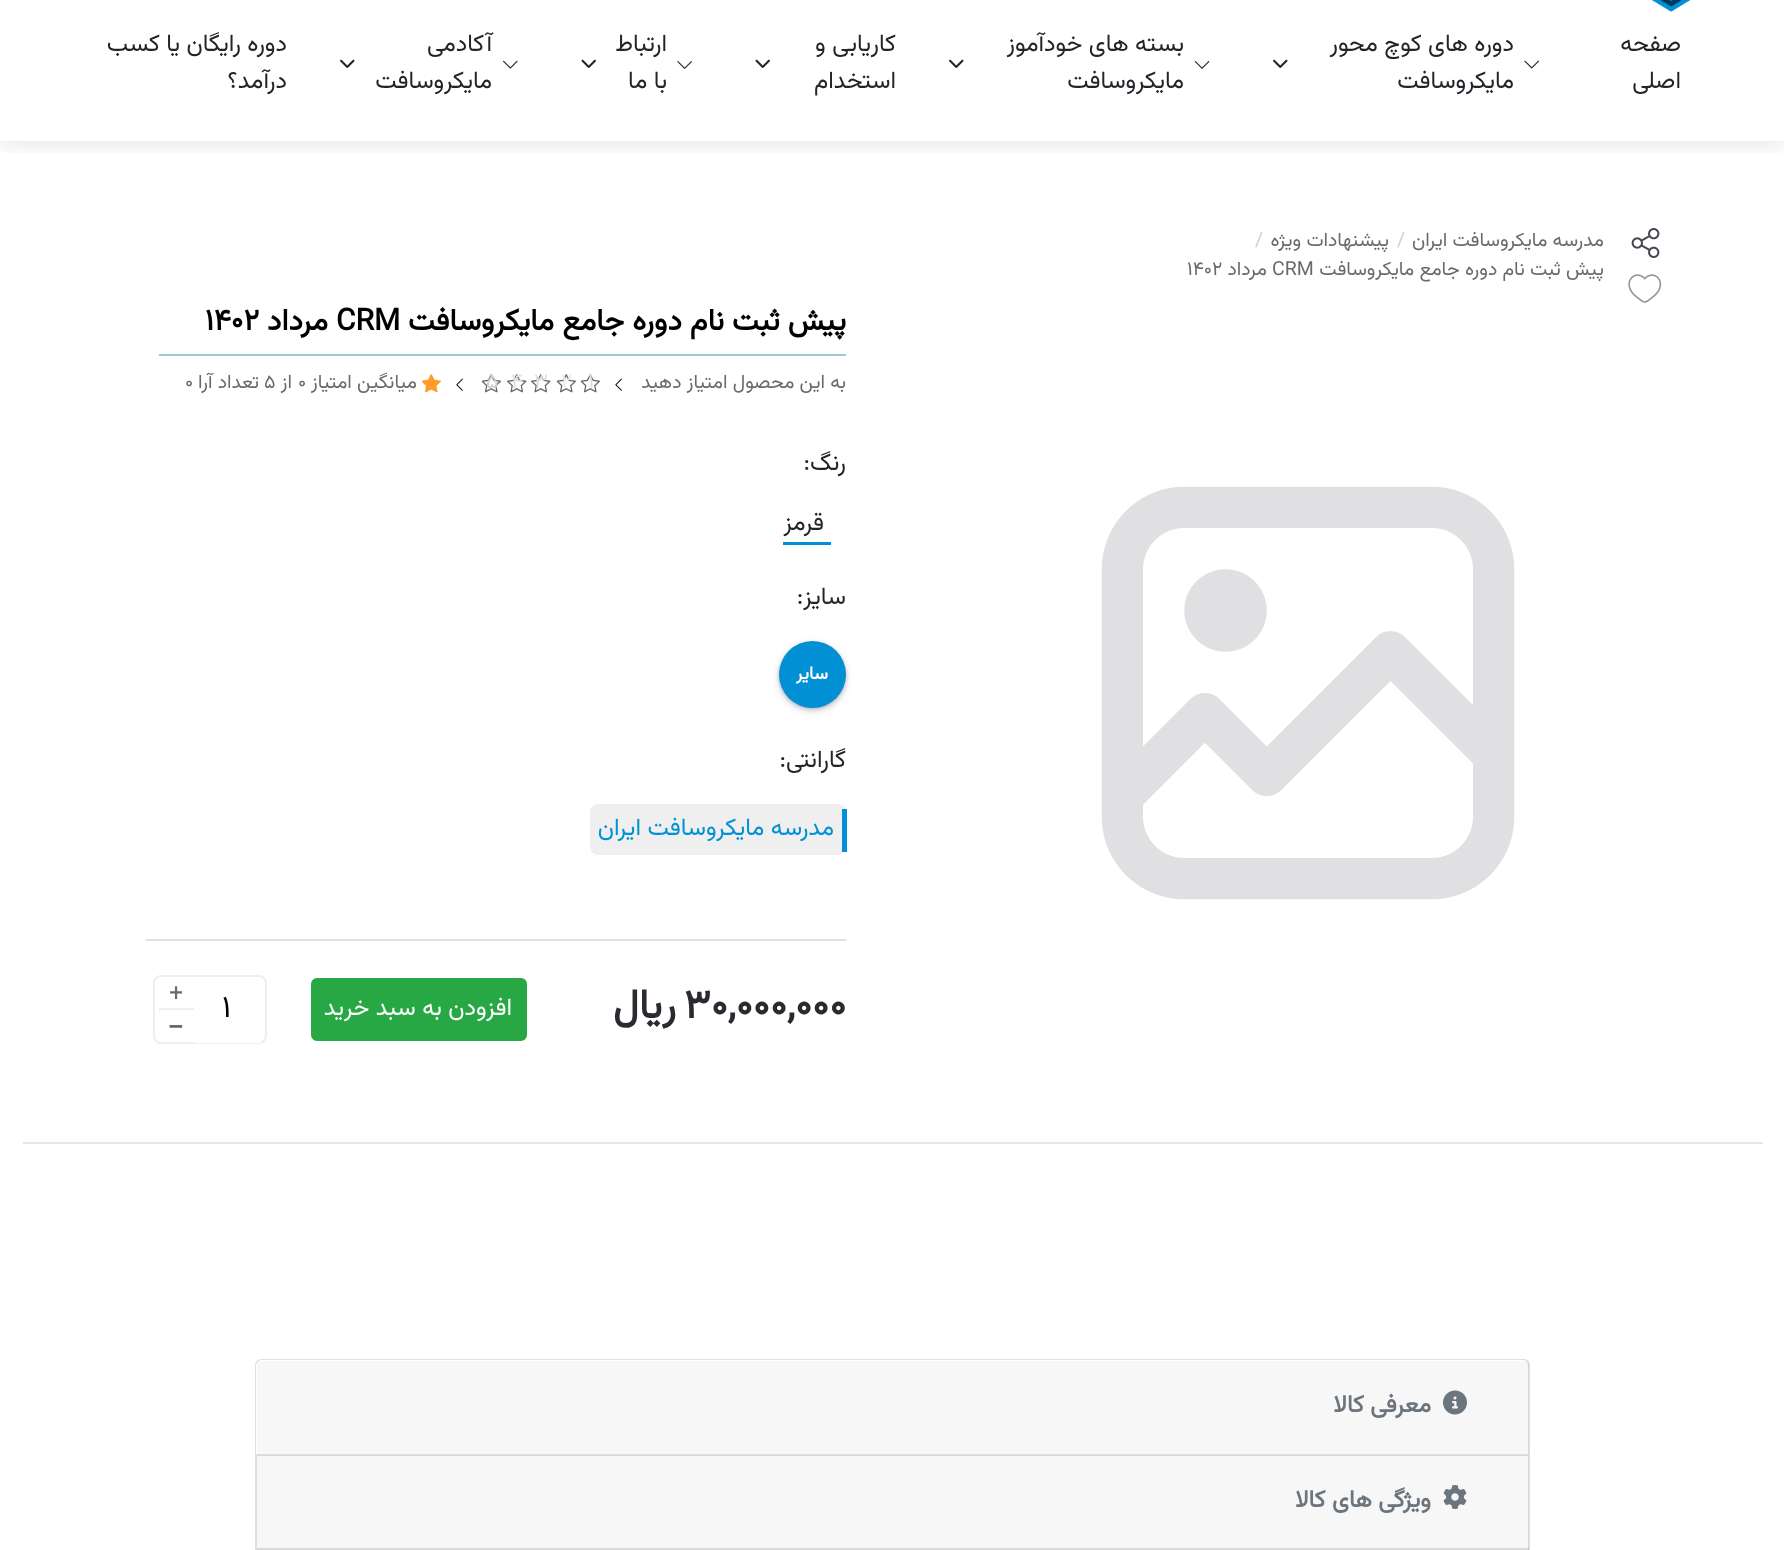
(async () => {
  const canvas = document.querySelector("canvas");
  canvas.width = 1784;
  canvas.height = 1550;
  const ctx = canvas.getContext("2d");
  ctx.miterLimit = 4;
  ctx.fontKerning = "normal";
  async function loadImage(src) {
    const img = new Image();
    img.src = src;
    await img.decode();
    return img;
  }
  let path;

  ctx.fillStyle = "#ffffff";
  ctx.fillRect(0, 0, 1784, 1550);
  ctx.save();
  ctx.beginPath();
  ctx.rect(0, 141, 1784, 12);
  ctx.clip();
  ctx.fillStyle = "rgba(0, 0, 0, 0.1)";
  ctx.filter = "blur(11px)";
  ctx.beginPath();
  ctx.rect(0, -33, 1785, 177);
  ctx.fill();
  ctx.filter = "none";
  ctx.restore();
  ctx.drawImage(await loadImage("img/1.png"), 1652, 0, 39, 12);
  ctx.drawImage(await loadImage("img/2.png"), 1524, 60, 15, 9);
  ctx.drawImage(await loadImage("img/3.png"), 1273, 59, 15, 9);
  ctx.drawImage(await loadImage("img/4.png"), 1194, 61, 16, 8);
  ctx.drawImage(await loadImage("img/3.png"), 949, 59, 15, 9);
  ctx.drawImage(await loadImage("img/5.png"), 755, 59, 15, 9);
  ctx.drawImage(await loadImage("img/6.png"), 677, 61, 15, 8);
  ctx.drawImage(await loadImage("img/5.png"), 581, 59, 15, 9);
  ctx.drawImage(await loadImage("img/7.png"), 503, 60, 15, 9);
  ctx.drawImage(await loadImage("img/3.png"), 340, 59, 15, 9);
  ctx.drawImage(await loadImage("img/8.png"), 1631, 228, 29, 30);
  ctx.drawImage(await loadImage("img/9.png"), 1628, 274, 34, 29);
  ctx.drawImage(await loadImage("img/10.png"), 1101, 486, 414, 414);
  ctx.fillStyle = "#9cc7dc";
  ctx.fillRect(159, 354, 687, 2);
  ctx.drawImage(await loadImage("img/11.png"), 615, 378, 7, 13);
  ctx.drawImage(await loadImage("img/12.png"), 581, 374, 19, 19);
  ctx.drawImage(await loadImage("img/12.png"), 557, 374, 19, 19);
  ctx.drawImage(await loadImage("img/13.png"), 531, 374, 20, 19);
  ctx.drawImage(await loadImage("img/13.png"), 507, 374, 20, 19);
  ctx.drawImage(await loadImage("img/12.png"), 482, 374, 19, 19);
  ctx.drawImage(await loadImage("img/11.png"), 456, 378, 7, 13);
  ctx.drawImage(await loadImage("img/14.png"), 422, 374, 19, 19);
  ctx.fillStyle = "#0190d4";
  ctx.fillRect(783, 542, 48, 3);
  ctx.fillStyle = "rgba(0, 0, 0, 0.3)";
  ctx.filter = "blur(2px)";
  ctx.beginPath();
  ctx.roundRect(780, 644, 65, 64, 32);
  ctx.fill();
  ctx.filter = "none";
  ctx.fillStyle = "rgba(50, 50, 93, 0.25)";
  ctx.filter = "blur(4px)";
  ctx.beginPath();
  ctx.roundRect(780, 645, 65, 65, 32.5);
  ctx.fill();
  ctx.filter = "none";
  ctx.fillStyle = "#0190d4";
  ctx.beginPath();
  ctx.arc(812.5, 674.5, 33.5, 0, Math.PI * 2);
  ctx.fill();
  ctx.fillStyle = "#efefef";
  ctx.beginPath();
  ctx.roundRect(590, 804, 256, 51, 8);
  ctx.fill();
  ctx.fillStyle = "#0190d4";
  ctx.fillRect(842, 809, 5, 43);
  ctx.fillStyle = "#e0e0e2";
  ctx.fillRect(146, 939, 700, 2);
  ctx.fillStyle = "#28a745";
  ctx.beginPath();
  ctx.roundRect(312, 979, 214, 61, 5);
  ctx.fill();
  ctx.strokeStyle = "#28a745";
  ctx.lineWidth = 2;
  ctx.stroke();
  ctx.beginPath();
  ctx.roundRect(154, 976, 112, 67, 7);
  ctx.strokeStyle = "#eeeeee";
  ctx.stroke();
  for (const [x, y, w, h, color] of [
    [194, 977, 67, 66, "#ffffff"],
    [159, 1008, 35, 2, "#eeeeee"],
    [23, 1142, 1740, 2, "#e6e6e6"],
  ]) {
    ctx.fillStyle = color;
    ctx.fillRect(x, y, w, h);
  }
  ctx.fillStyle = "#dfdfdf";
  path = new Path2D("M261 1359H1524C1527 1359 1530 1362 1530 1365V1454H255V1365C255 1362 258 1359 261 1359ZM261 1360H1524C1526 1360 1528 1363 1528 1365V1454H256V1365C256 1363 259 1360 261 1360Z");
  ctx.fill(path, "evenodd");
  ctx.fillStyle = "rgba(0, 0, 0, 0.03)";
  ctx.fillRect(257, 1361, 1272, 93);
  ctx.drawImage(await loadImage("img/15.png"), 1443, 1390, 24, 25);
  ctx.strokeStyle = "#dfdfdf";
  ctx.strokeRect(256, 1455, 1273, 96);
  ctx.fillRect(257, 1455, 1272, 95);
  ctx.fillStyle = "rgba(0, 0, 0, 0.12)";
  ctx.fillRect(257, 1548, 1272, 2);
  ctx.drawImage(await loadImage("img/16.png"), 1443, 1485, 24, 24);
  ctx.direction = "rtl";
  ctx.font = "24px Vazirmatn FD";
  ctx.fillStyle = "#212529";
  for (const [text, x, y] of [
    ["صفحه", 1681, 51],
    ["اصلی", 1681, 88],
    ["دوره های کوچ محور", 1514, 51],
    ["مایکروسافت", 1514, 88],
    ["بسته های خودآموز", 1184, 51],
    ["مایکروسافت", 1184, 88],
    ["کاریابی و", 896, 51],
    ["استخدام", 896, 88],
    ["ارتباط", 667, 51],
    ["با ما", 667, 88],
    ["آکادمی", 492, 51],
    ["مایکروسافت", 492, 88],
    ["دوره رایگان یا کسب", 287, 51],
    ["درآمد؟", 287, 88],
  ]) {
    ctx.fillText(text, x, y);
  }
  ctx.font = "19.5px Vazirmatn FD";
  ctx.fillStyle = "#6a6a6a";
  ctx.fillText("مدرسه مایکروسافت ایران", 1604, 246);
  ctx.letterSpacing = "1px";
  ctx.direction = "ltr";
  ctx.fillStyle = "#cfcfcf";
  ctx.fillText("/", 1397, 246);
  ctx.letterSpacing = "0px";
  ctx.direction = "rtl";
  ctx.fillStyle = "#6a6a6a";
  ctx.fillText("پیشنهادات ویژه", 1389, 246);
  ctx.letterSpacing = "1px";
  ctx.direction = "ltr";
  ctx.fillStyle = "#cfcfcf";
  ctx.fillText("/", 1255, 246);
  ctx.letterSpacing = "0px";
  ctx.direction = "rtl";
  ctx.fillStyle = "#6a6a6a";
  ctx.fillText("پیش ثبت نام دوره جامع مایکروسافت", 1604, 275);
  ctx.direction = "ltr";
  ctx.fillText("CRM", 1272, 275);
  ctx.direction = "rtl";
  ctx.fillText("مرداد", 1267, 275);
  ctx.direction = "ltr";
  ctx.fillText("1402", 1187, 275);
  ctx.direction = "rtl";
  ctx.font = "bold 30px Vazirmatn FD";
  ctx.fillStyle = "#000000";
  ctx.fillText("پیش ثبت نام دوره جامع مایکروسافت", 846, 330);
  ctx.direction = "ltr";
  ctx.fillText("CRM", 336, 330);
  ctx.direction = "rtl";
  ctx.fillText("مرداد", 328, 330);
  ctx.direction = "ltr";
  ctx.fillText("1402", 205, 330);
  ctx.direction = "rtl";
  ctx.font = "19.5px Vazirmatn FD";
  ctx.fillStyle = "#6a6a6a";
  ctx.fillText("به این محصول امتیاز دهید", 846, 388);
  ctx.direction = "ltr";
  ctx.font = "21px Vazirmatn FD";
  ctx.fillStyle = "#dddddd";
  ctx.fillText("1", 588, 388);
  ctx.fillStyle = "#eaeaea";
  ctx.fillText("2", 561, 388);
  ctx.fillStyle = "#dddddd";
  ctx.fillText("3", 534, 388);
  ctx.fillText("4", 511, 388);
  ctx.fillStyle = "#cfcfcf";
  ctx.fillText("5", 486, 388);
  ctx.direction = "rtl";
  ctx.font = "19.5px Vazirmatn FD";
  ctx.fillStyle = "#6a6a6a";
  ctx.fillText("میانگین امتیاز", 417, 388);
  ctx.direction = "ltr";
  ctx.fillText("0", 298, 388);
  ctx.direction = "rtl";
  ctx.fillText("از", 292, 388);
  ctx.direction = "ltr";
  ctx.fillText("5", 264, 388);
  ctx.direction = "rtl";
  ctx.fillText("تعداد آرا", 259, 388);
  ctx.direction = "ltr";
  ctx.fillText("0", 185, 388);
  ctx.direction = "rtl";
  ctx.font = "24px Vazirmatn FD";
  ctx.fillStyle = "#212529";
  for (const [text, x, y] of [
    ["رنگ:", 846, 470],
    ["قرمز", 824, 530],
    ["سایز:", 846, 604],
  ]) {
    ctx.fillText(text, x, y);
  }
  ctx.font = "bold 18px Vazirmatn FD";
  ctx.fillStyle = "#ffffff";
  ctx.fillText("سایر", 828, 679);
  ctx.font = "24px Vazirmatn FD";
  ctx.fillStyle = "#212529";
  ctx.fillText("گارانتی:", 846, 767);
  ctx.fillStyle = "#0190d4";
  ctx.fillText("مدرسه مایکروسافت ایران", 834, 835);
  ctx.direction = "ltr";
  ctx.font = "bold 40.5px Vazirmatn FD";
  ctx.fillStyle = "#292b30";
  ctx.fillText("30,000,000", 684, 1018);
  ctx.direction = "rtl";
  ctx.fillText("ریال", 676, 1018);
  ctx.font = "24px Vazirmatn FD";
  ctx.fillStyle = "#ffffff";
  ctx.fillText("افزودن به سبد خرید", 512, 1015);
  ctx.direction = "ltr";
  ctx.font = "31px Vazirmatn FD";
  ctx.fillStyle = "#000000";
  ctx.fillText("1", 222, 1017);
  ctx.font = "30px Vazirmatn FD";
  ctx.fillStyle = "#6a6a6a";
  ctx.fillText("+", 168, 1000);
  ctx.font = "38px Vazirmatn FD";
  ctx.fillText("-", 167, 1036);
  ctx.direction = "rtl";
  ctx.font = "bold 24px Vazirmatn FD";
  ctx.fillStyle = "#6c757d";
  ctx.fillText("معرفی کالا", 1431, 1412);
  ctx.fillText("ویژگی های کالا", 1431, 1507);
})();
